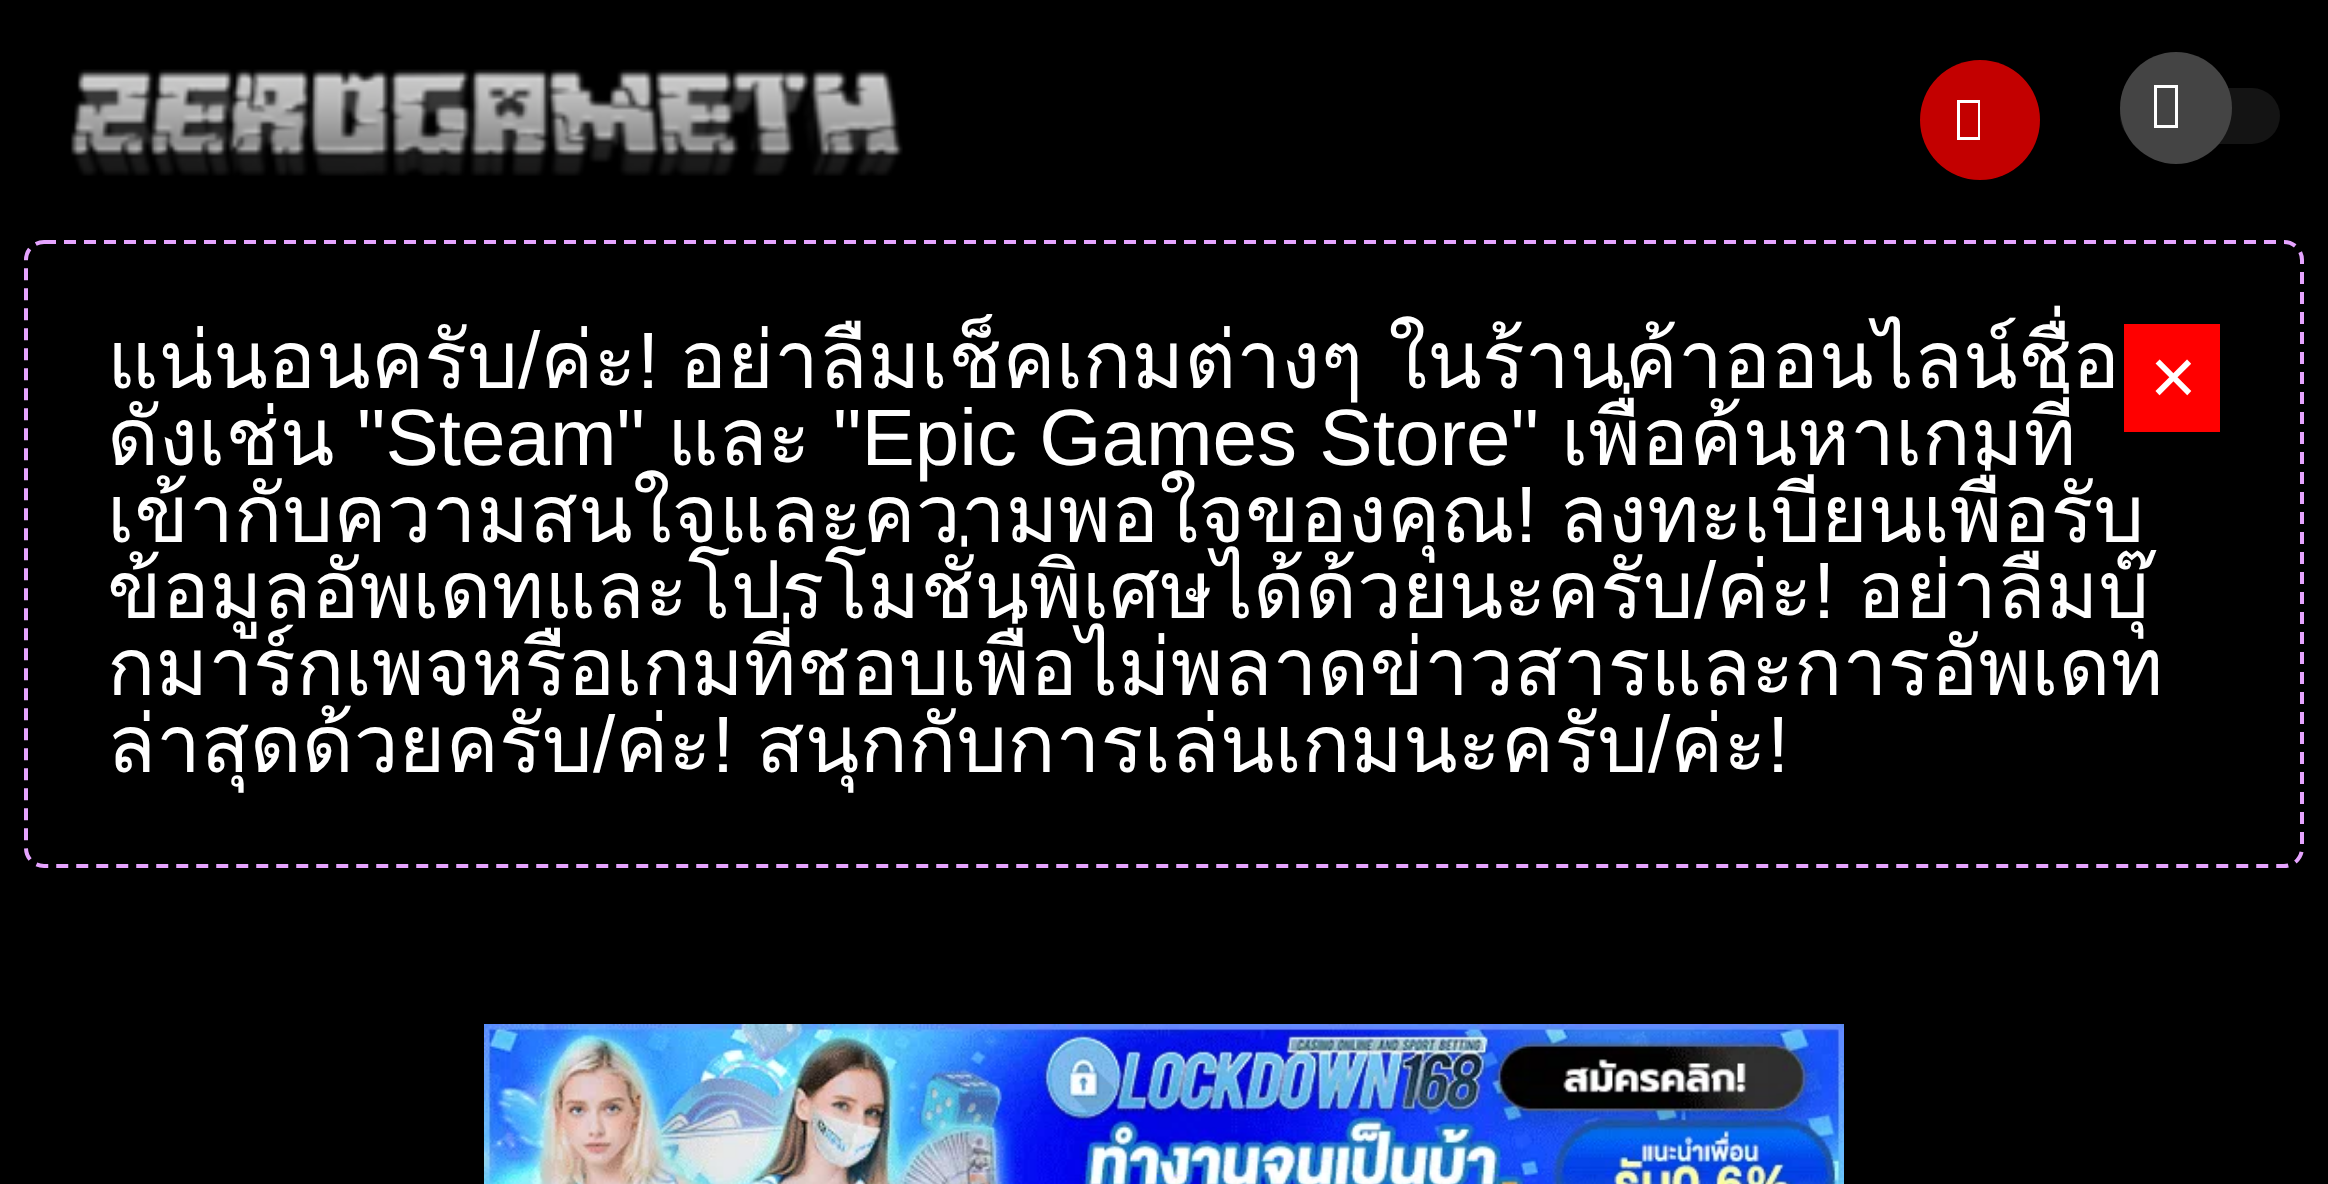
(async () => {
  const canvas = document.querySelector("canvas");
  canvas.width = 2328;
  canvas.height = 1184;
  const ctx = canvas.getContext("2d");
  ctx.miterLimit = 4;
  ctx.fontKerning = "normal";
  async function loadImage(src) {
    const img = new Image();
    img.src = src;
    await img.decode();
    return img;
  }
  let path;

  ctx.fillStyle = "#000000";
  ctx.fillRect(0, 0, 2328, 1184);
  ctx.drawImage(await loadImage("img/1.png"), 70, 69, 833, 107);
  ctx.fillStyle = "#c30000";
  ctx.beginPath();
  ctx.arc(1980, 120, 60, 0, Math.PI * 2);
  ctx.fill();
  ctx.fillStyle = "#ffffff";
  path = new Path2D("M1957 140V100H1980V140ZM1960 137H1978V103H1960Z");
  ctx.fill(path);
  ctx.fillStyle = "#141414";
  ctx.beginPath();
  ctx.roundRect(2120, 88, 160, 56, 28);
  ctx.fill();
  ctx.fillStyle = "#444444";
  ctx.beginPath();
  ctx.arc(2176, 108, 56, 0, Math.PI * 2);
  ctx.fill();
  ctx.fillStyle = "#ffffff";
  path = new Path2D("M2154 128V85H2178V128ZM2157 125H2175V88H2157Z");
  ctx.fill(path);
  path = new Path2D("M44 242H2284C2294 242 2302 250 2302 260V848C2302 858 2294 866 2284 866H44C34 866 26 858 26 848V260C26 250 34 242 44 242Z");
  ctx.strokeStyle = "#e6a4ff";
  ctx.lineWidth = 4;
  ctx.setLineDash([12, 8]);
  ctx.stroke(path);
  ctx.fillStyle = "#ff0000";
  ctx.fillRect(2124, 324, 96, 108);
  ctx.drawImage(await loadImage("img/2.png"), 484, 1024, 1360, 160);
  ctx.font = "80px Loma";
  ctx.fillStyle = "#ffffff";
  ctx.fillText("แน่นอนครับ", 107, 388);
  ctx.wordSpacing = "-2px";
  ctx.fillText("อย่าลืมเช็คเกมต่างๆ ในร้านค้าออนไลน์ชื่อ", 679, 388);
  ctx.wordSpacing = "0px";
  ctx.font = "80px Liberation Sans";
  ctx.fillText("/", 518, 388);
  ctx.font = "80px Loma";
  ctx.fillText("ค่ะ", 540, 388);
  ctx.font = "80px Liberation Sans";
  ctx.fillText("!", 637, 388);
  ctx.fillText("×", 2150, 404);
  ctx.font = "80px Loma";
  ctx.fillText("ดังเช่น", 107, 465);
  ctx.font = "80px Liberation Sans";
  ctx.fillText("\"Steam\"", 357, 465);
  ctx.font = "80px Loma";
  ctx.fillText("และ", 667, 465);
  ctx.font = "80px Liberation Sans";
  ctx.fillText("\"Epic Games Store\"", 833, 465);
  ctx.font = "80px Loma";
  ctx.fillText("เพื่อค้นหาเกมที่", 1561, 465);
  ctx.fillText("เข้ากับความสนใจและความพอใจของคุณ", 107, 542);
  ctx.font = "80px Liberation Sans";
  ctx.fillText("!", 1515, 542);
  ctx.font = "80px Loma";
  for (const [text, x, y] of [
    ["ลงทะเบียนเพื่อรับ", 1559, 542],
    ["ข้อมูลอัพเดทและโปรโมชั่นพิเศษได้ด้วยนะครับ", 107, 618],
    ["อย่าลืมบุ๊", 1857, 618],
  ]) {
    ctx.fillText(text, x, y);
  }
  ctx.font = "80px Liberation Sans";
  ctx.fillText("/", 1694, 618);
  ctx.font = "80px Loma";
  ctx.fillText("ค่ะ", 1716, 618);
  ctx.font = "80px Liberation Sans";
  ctx.fillText("!", 1813, 618);
  ctx.font = "80px Loma";
  for (const [text, x, y] of [
    ["กมาร์กเพจหรือเกมที่ชอบเพื่อไม่พลาดข่าวสารและการอัพเดท", 107, 695],
    ["ล่าสุดด้วยครับ", 107, 772],
    ["สนุกกับการเล่นเกมนะครับ", 756, 772],
  ]) {
    ctx.fillText(text, x, y);
  }
  ctx.font = "80px Liberation Sans";
  ctx.fillText("/", 593, 772);
  ctx.font = "80px Loma";
  ctx.fillText("ค่ะ", 615, 772);
  ctx.font = "80px Liberation Sans";
  ctx.fillText("!", 712, 772);
  ctx.fillText("/", 1648, 772);
  ctx.font = "80px Loma";
  ctx.fillText("ค่ะ", 1670, 772);
  ctx.font = "80px Liberation Sans";
  ctx.fillText("!", 1767, 772);
})();
